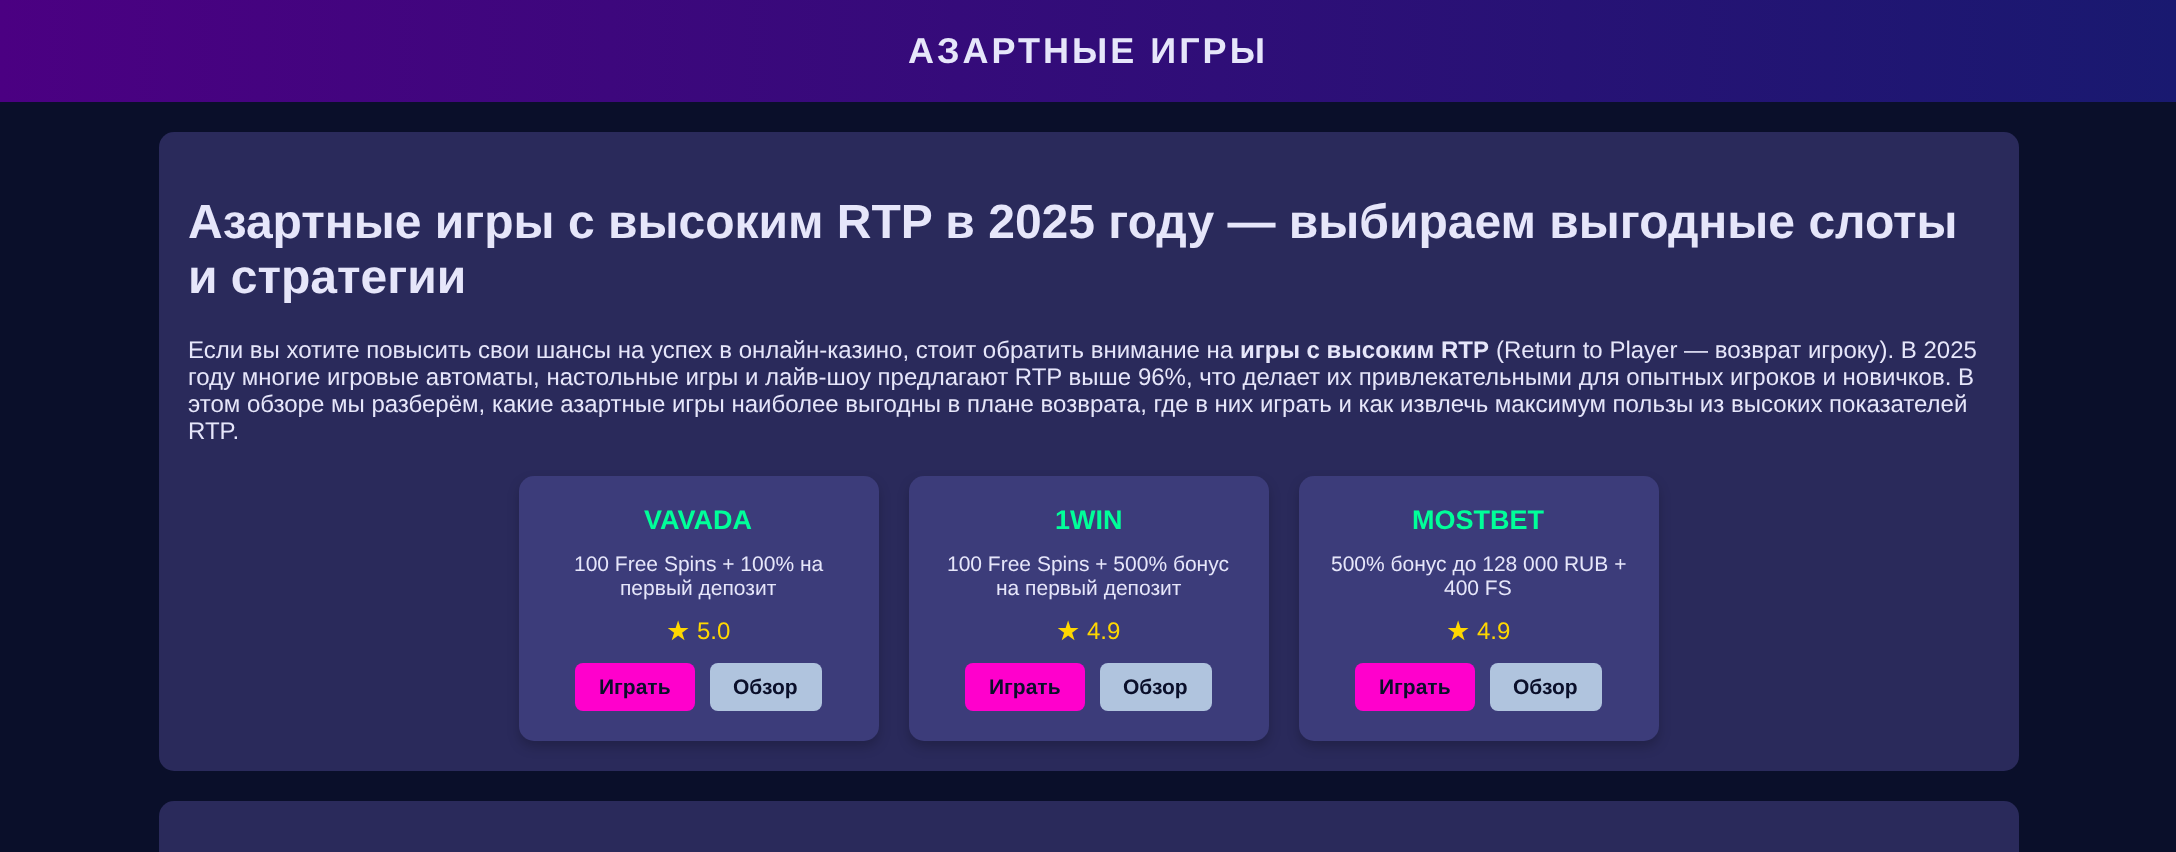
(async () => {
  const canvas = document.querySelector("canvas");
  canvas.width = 2176;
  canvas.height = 852;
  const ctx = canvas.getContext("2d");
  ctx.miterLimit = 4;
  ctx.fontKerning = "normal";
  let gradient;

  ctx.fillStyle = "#0a0f2a";
  ctx.fillRect(0, 0, 2176, 852);
  gradient = ctx.createLinearGradient(0, 51, 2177, 51);
  gradient.addColorStop(0, "#4b0082");
  gradient.addColorStop(1, "#191970");
  ctx.fillStyle = gradient;
  ctx.fillRect(0, 0, 2176, 102);
  ctx.fillStyle = "#2a2a5b";
  ctx.beginPath();
  ctx.roundRect(159, 132, 1860, 639, 15);
  ctx.fill();
  ctx.fillStyle = "rgba(0, 0, 0, 0.2)";
  ctx.filter = "blur(6px)";
  ctx.beginPath();
  ctx.roundRect(519, 482, 360, 265, 15);
  ctx.fill();
  ctx.filter = "none";
  ctx.fillStyle = "#3c3c7a";
  ctx.beginPath();
  ctx.roundRect(519, 476, 360, 265, 15);
  ctx.fill();
  ctx.fillStyle = "#ff00cc";
  ctx.beginPath();
  ctx.roundRect(575, 663, 120, 48, 8);
  ctx.fill();
  ctx.fillStyle = "#b0c4de";
  ctx.beginPath();
  ctx.roundRect(710, 663, 112, 48, 8);
  ctx.fill();
  ctx.fillStyle = "rgba(0, 0, 0, 0.2)";
  ctx.filter = "blur(6px)";
  ctx.beginPath();
  ctx.roundRect(909, 482, 360, 265, 15);
  ctx.fill();
  ctx.filter = "none";
  ctx.fillStyle = "#3c3c7a";
  ctx.beginPath();
  ctx.roundRect(909, 476, 360, 265, 15);
  ctx.fill();
  ctx.fillStyle = "#ff00cc";
  ctx.beginPath();
  ctx.roundRect(965, 663, 120, 48, 8);
  ctx.fill();
  ctx.fillStyle = "#b0c4de";
  ctx.beginPath();
  ctx.roundRect(1100, 663, 112, 48, 8);
  ctx.fill();
  ctx.fillStyle = "rgba(0, 0, 0, 0.2)";
  ctx.filter = "blur(6px)";
  ctx.beginPath();
  ctx.roundRect(1299, 482, 360, 265, 15);
  ctx.fill();
  ctx.filter = "none";
  ctx.fillStyle = "#3c3c7a";
  ctx.beginPath();
  ctx.roundRect(1299, 476, 360, 265, 15);
  ctx.fill();
  ctx.fillStyle = "#ff00cc";
  ctx.beginPath();
  ctx.roundRect(1355, 663, 120, 48, 8);
  ctx.fill();
  ctx.fillStyle = "#b0c4de";
  ctx.beginPath();
  ctx.roundRect(1490, 663, 112, 48, 8);
  ctx.fill();
  ctx.fillStyle = "#2a2a5b";
  ctx.beginPath();
  ctx.roundRect(159, 801, 1860, 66, 15);
  ctx.fill();
  ctx.letterSpacing = "3px";
  ctx.font = "bold 36px Liberation Sans";
  ctx.fillStyle = "#e6e6fa";
  ctx.fillText("АЗАРТНЫЕ ИГРЫ", 908, 63);
  ctx.letterSpacing = "0px";
  ctx.font = "bold 48px Liberation Sans";
  ctx.fillText("Азартные игры с высоким RTP в 2025 году — выбираем выгодные слоты", 188, 238);
  ctx.fillText("и стратегии", 188, 293);
  ctx.font = "24px Liberation Sans";
  ctx.fillText("Если вы хотите повысить свои шансы на успех в онлайн-казино, стоит обратить внимание на", 188, 358);
  ctx.font = "bold 24px Liberation Sans";
  ctx.fillText("игры с высоким RTP", 1240, 358);
  ctx.font = "24px Liberation Sans";
  for (const [text, x, y] of [
    ["(Return to Player — возврат игроку). В 2025", 1496, 358],
    ["году многие игровые автоматы, настольные игры и лайв-шоу предлагают RTP выше 96%, что делает их привлекательными для опытных игроков и новичков. В", 188, 385],
    ["этом обзоре мы разберём, какие азартные игры наиболее выгодны в плане возврата, где в них играть и как извлечь максимум пользы из высоких показателей", 188, 412],
    ["RTP.", 188, 439],
  ]) {
    ctx.fillText(text, x, y);
  }
  ctx.font = "bold 27px Liberation Sans";
  ctx.fillStyle = "#00ff99";
  ctx.fillText("VAVADA", 644, 529);
  ctx.font = "21px Liberation Sans";
  ctx.fillStyle = "#e6e6fa";
  ctx.fillText("100 Free Spins + 100% на", 574, 571);
  ctx.fillText("первый депозит", 620, 595);
  ctx.font = "27px DejaVu Sans";
  ctx.fillStyle = "#ffd700";
  ctx.fillText("★", 666, 640);
  ctx.font = "24px Liberation Sans";
  ctx.fillText("5.0", 697, 639);
  ctx.font = "bold 21px Liberation Sans";
  ctx.fillStyle = "#0a0f2a";
  ctx.fillText("Играть", 599, 694);
  ctx.fillText("Обзор", 733, 694);
  ctx.font = "bold 27px Liberation Sans";
  ctx.fillStyle = "#00ff99";
  ctx.fillText("1WIN", 1055, 529);
  ctx.font = "21px Liberation Sans";
  ctx.fillStyle = "#e6e6fa";
  ctx.fillText("100 Free Spins + 500% бонус", 947, 571);
  ctx.fillText("на первый депозит", 996, 595);
  ctx.font = "27px DejaVu Sans";
  ctx.fillStyle = "#ffd700";
  ctx.fillText("★", 1056, 640);
  ctx.font = "24px Liberation Sans";
  ctx.fillText("4.9", 1087, 639);
  ctx.font = "bold 21px Liberation Sans";
  ctx.fillStyle = "#0a0f2a";
  ctx.fillText("Играть", 989, 694);
  ctx.fillText("Обзор", 1123, 694);
  ctx.font = "bold 27px Liberation Sans";
  ctx.fillStyle = "#00ff99";
  ctx.fillText("MOSTBET", 1412, 529);
  ctx.font = "21px Liberation Sans";
  ctx.fillStyle = "#e6e6fa";
  ctx.fillText("500% бонус до 128 000 RUB +", 1331, 571);
  ctx.fillText("400 FS", 1444, 595);
  ctx.font = "27px DejaVu Sans";
  ctx.fillStyle = "#ffd700";
  ctx.fillText("★", 1446, 640);
  ctx.font = "24px Liberation Sans";
  ctx.fillText("4.9", 1477, 639);
  ctx.font = "bold 21px Liberation Sans";
  ctx.fillStyle = "#0a0f2a";
  ctx.fillText("Играть", 1379, 694);
  ctx.fillText("Обзор", 1513, 694);
})();
